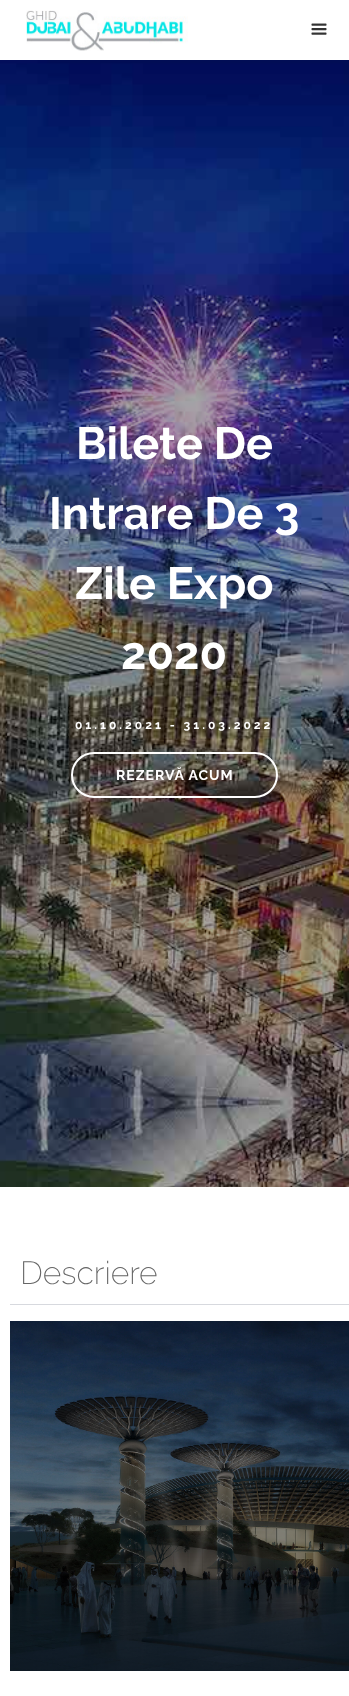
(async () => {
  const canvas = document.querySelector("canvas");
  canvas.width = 349;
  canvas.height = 1696;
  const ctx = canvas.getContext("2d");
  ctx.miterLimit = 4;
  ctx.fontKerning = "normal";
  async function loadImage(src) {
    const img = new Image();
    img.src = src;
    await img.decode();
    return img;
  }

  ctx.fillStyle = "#ffffff";
  ctx.fillRect(0, 0, 349, 1696);
  ctx.drawImage(await loadImage("img/1.png"), 26, 10, 162, 41);
  ctx.drawImage(await loadImage("img/2.png"), 311, 23, 16, 12);
  ctx.drawImage(await loadImage("img/3.png"), 0, 60, 349, 1127);
  ctx.beginPath();
  ctx.roundRect(72, 753, 205, 44, 22);
  ctx.strokeStyle = "#ffffff";
  ctx.lineWidth = 2;
  ctx.stroke();
  ctx.fillStyle = "#d7d9de";
  ctx.fillRect(10, 1304, 339, 1);
  ctx.drawImage(await loadImage("img/4.png"), 10, 1321, 339, 350);
  ctx.font = "bold 45px Raleway";
  ctx.fillStyle = "#ffffff";
  for (const [text, x, y] of [
    ["Bilete De", 76, 459],
    ["Intrare De 3", 49, 529],
    ["Zile Expo", 75, 599],
    ["2020", 121, 669],
  ]) {
    ctx.fillText(text, x, y);
  }
  ctx.letterSpacing = "3px";
  ctx.font = "bold 12px Raleway";
  ctx.fillText("01.10.2021 - 31.03.2022", 75, 729);
  ctx.letterSpacing = "1px";
  ctx.font = "bold 14px Raleway";
  ctx.fillText("REZERVĂ ACUM", 116, 780);
  ctx.letterSpacing = "0px";
  ctx.font = "200 32px Raleway";
  ctx.fillStyle = "#666666";
  ctx.fillText("Descriere", 20, 1284);
})();
